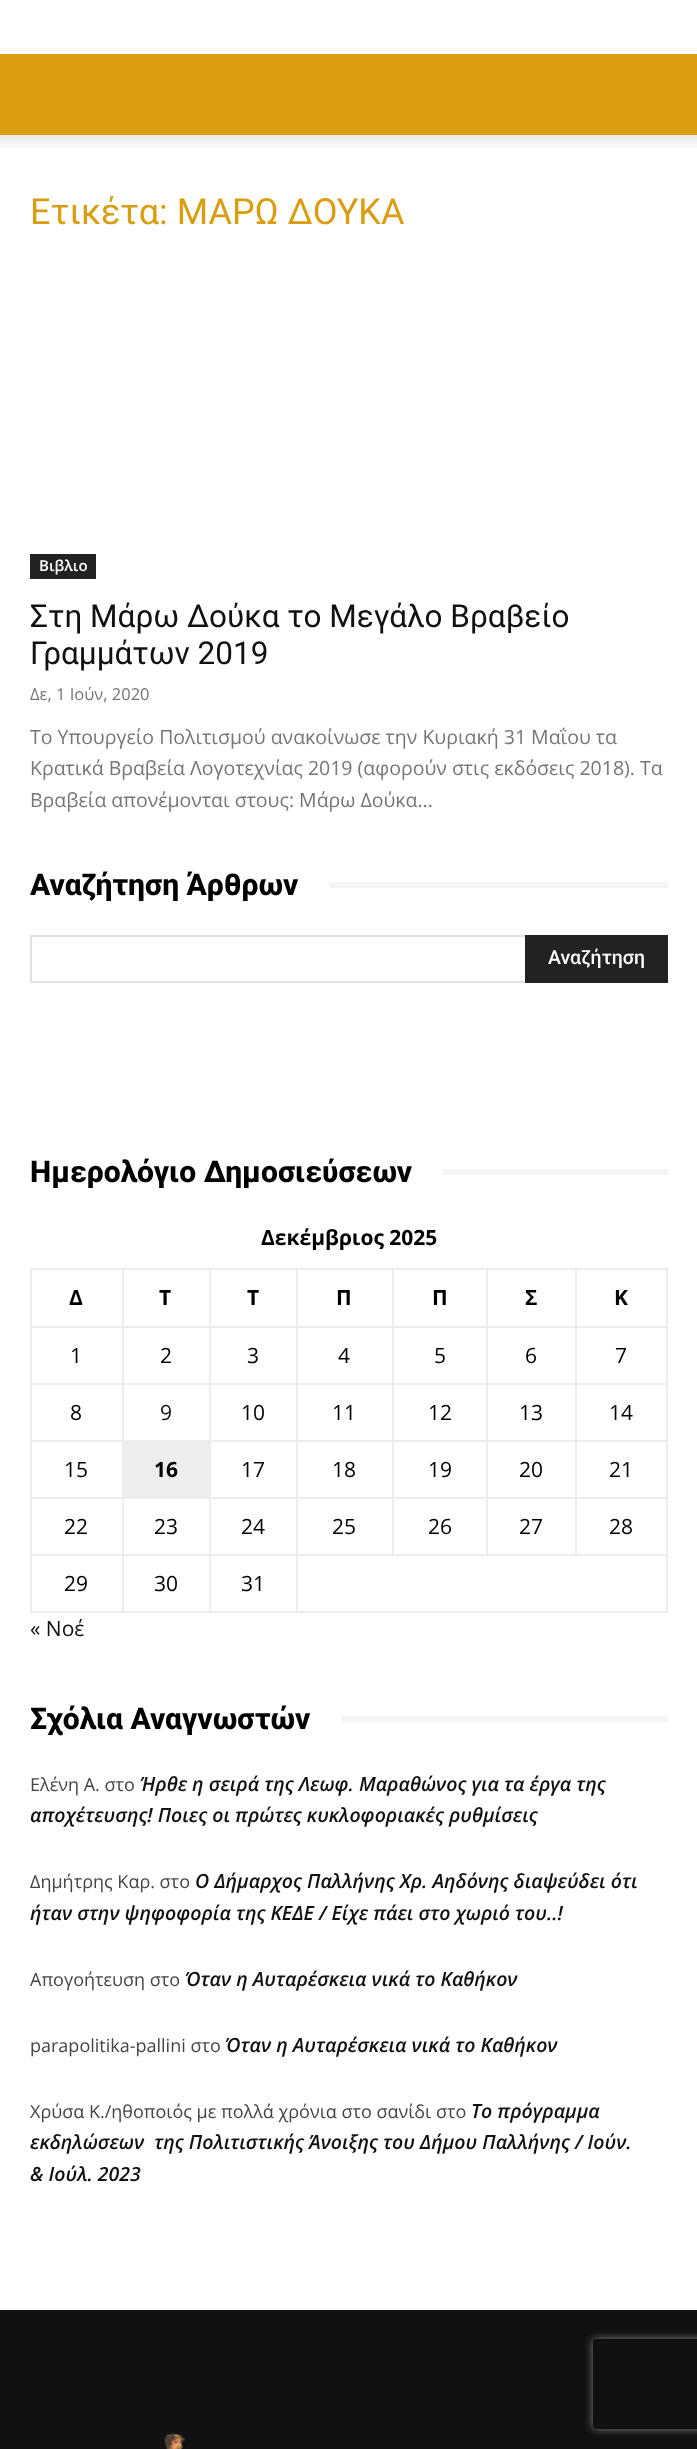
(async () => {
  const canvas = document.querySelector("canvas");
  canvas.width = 697;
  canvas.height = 2449;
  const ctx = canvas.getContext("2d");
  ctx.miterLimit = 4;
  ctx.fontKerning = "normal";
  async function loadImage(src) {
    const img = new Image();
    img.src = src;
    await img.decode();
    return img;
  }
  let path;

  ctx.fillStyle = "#ffffff";
  ctx.fillRect(0, 0, 697, 2449);
  ctx.fillStyle = "#da9d10";
  ctx.fillRect(0, 54, 697, 81);
  ctx.drawImage(await loadImage("img/1.png"), 0, 135, 697, 13);
  for (const [x, y, w, h, color] of [
    [30, 554, 66, 25, "#222222"],
    [329, 882, 339, 6, "#f5f5f5"],
    [30, 935, 495, 2, "#e1e1e1"],
    [30, 981, 495, 2, "#e1e1e1"],
    [30, 935, 2, 48, "#e1e1e1"],
    [525, 935, 143, 48, "#222222"],
    [443, 1169, 225, 6, "#f5f5f5"],
    [575, 1268, 93, 2, "#ededed"],
    [575, 1326, 93, 2, "#ededed"],
    [575, 1383, 93, 2, "#ededed"],
    [575, 1440, 93, 2, "#ededed"],
    [575, 1497, 93, 2, "#ededed"],
    [296, 1554, 372, 2, "#ededed"],
    [575, 1497, 2, 59, "#ededed"],
    [486, 1497, 90, 2, "#ededed"],
    [575, 1440, 2, 59, "#ededed"],
    [486, 1440, 90, 2, "#ededed"],
    [575, 1383, 2, 59, "#ededed"],
    [486, 1383, 90, 2, "#ededed"],
    [575, 1326, 2, 59, "#ededed"],
    [486, 1326, 90, 2, "#ededed"],
    [575, 1268, 2, 60, "#ededed"],
    [486, 1268, 90, 2, "#ededed"],
    [486, 1497, 2, 59, "#ededed"],
    [392, 1497, 96, 2, "#ededed"],
    [486, 1440, 2, 59, "#ededed"],
    [392, 1440, 96, 2, "#ededed"],
    [486, 1383, 2, 59, "#ededed"],
    [392, 1383, 96, 2, "#ededed"],
    [486, 1326, 2, 59, "#ededed"],
    [392, 1326, 96, 2, "#ededed"],
    [486, 1268, 2, 60, "#ededed"],
    [392, 1268, 96, 2, "#ededed"],
    [392, 1497, 2, 59, "#ededed"],
    [296, 1497, 97, 2, "#ededed"],
    [392, 1440, 2, 59, "#ededed"],
    [296, 1440, 97, 2, "#ededed"],
    [392, 1383, 2, 59, "#ededed"],
    [296, 1383, 97, 2, "#ededed"],
    [392, 1326, 2, 59, "#ededed"],
    [296, 1326, 97, 2, "#ededed"],
    [392, 1268, 2, 60, "#ededed"],
    [296, 1268, 97, 2, "#ededed"],
    [666, 1554, 2, 59, "#ededed"],
    [296, 1611, 372, 2, "#ededed"],
    [296, 1554, 2, 59, "#ededed"],
    [209, 1554, 88, 2, "#ededed"],
    [296, 1497, 2, 59, "#ededed"],
    [209, 1497, 88, 2, "#ededed"],
    [296, 1440, 2, 59, "#ededed"],
    [209, 1440, 88, 2, "#ededed"],
    [296, 1383, 2, 59, "#ededed"],
    [209, 1383, 88, 2, "#ededed"],
    [296, 1326, 2, 59, "#ededed"],
    [209, 1326, 88, 2, "#ededed"],
    [296, 1268, 2, 60, "#ededed"],
    [209, 1268, 88, 2, "#ededed"],
    [209, 1611, 88, 2, "#ededed"],
    [209, 1554, 2, 59, "#ededed"],
    [122, 1554, 88, 2, "#ededed"],
    [209, 1497, 2, 59, "#ededed"],
    [122, 1497, 88, 2, "#ededed"],
    [209, 1440, 2, 59, "#ededed"],
    [209, 1383, 2, 59, "#ededed"],
    [122, 1383, 88, 2, "#ededed"],
    [209, 1326, 2, 59, "#ededed"],
    [122, 1326, 88, 2, "#ededed"],
    [209, 1268, 2, 60, "#ededed"],
    [122, 1268, 88, 2, "#ededed"],
    [122, 1440, 87, 57, "#ededed"],
    [30, 1440, 93, 2, "#ededed"],
    [122, 1383, 2, 59, "#ededed"],
    [30, 1383, 93, 2, "#ededed"],
    [122, 1326, 2, 59, "#ededed"],
    [30, 1326, 93, 2, "#ededed"],
    [122, 1268, 2, 60, "#ededed"],
    [30, 1268, 93, 2, "#ededed"],
    [122, 1611, 88, 2, "#ededed"],
    [122, 1554, 2, 59, "#ededed"],
    [30, 1554, 93, 2, "#ededed"],
    [122, 1497, 2, 59, "#ededed"],
    [30, 1497, 93, 2, "#ededed"],
    [30, 1611, 93, 2, "#ededed"],
    [30, 1554, 2, 59, "#ededed"],
    [30, 1497, 2, 59, "#ededed"],
    [30, 1440, 2, 59, "#ededed"],
    [30, 1383, 2, 59, "#ededed"],
    [30, 1326, 2, 59, "#ededed"],
    [30, 1268, 2, 60, "#ededed"],
    [666, 1497, 2, 59, "#ededed"],
    [666, 1440, 2, 59, "#ededed"],
    [666, 1383, 2, 59, "#ededed"],
    [666, 1326, 2, 59, "#ededed"],
    [666, 1268, 2, 60, "#ededed"],
    [341, 1716, 327, 6, "#f5f5f5"],
    [0, 2310, 697, 139, "#111111"],
  ]) {
    ctx.fillStyle = color;
    ctx.fillRect(x, y, w, h);
  }
  ctx.drawImage(await loadImage("img/2.png"), 164, 2433, 21, 16);
  ctx.save();
  path = new Path2D("M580 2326H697V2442H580ZM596 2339H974C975.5 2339 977 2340.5 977 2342V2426C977 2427.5 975.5 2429 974 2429H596C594.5 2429 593 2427.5 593 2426V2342C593 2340.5 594.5 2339 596 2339Z");
  ctx.clip(path, "evenodd");
  ctx.fillStyle = "#808080";
  ctx.filter = "blur(4px)";
  ctx.beginPath();
  ctx.roundRect(593, 2339, 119, 90, 3);
  ctx.fill();
  ctx.filter = "none";
  ctx.restore();
  ctx.font = "36px Roboto";
  ctx.fillStyle = "#da9d10";
  ctx.fillText("Ετικέτα: ΜΑΡΩ ΔΟΥΚΑ", 30, 224);
  ctx.font = "600 15px Open Sans";
  ctx.fillStyle = "#ffffff";
  ctx.fillText("Βιβλιο", 39, 571);
  ctx.font = "31.5px Roboto";
  ctx.fillStyle = "#111111";
  ctx.fillText("Στη Μάρω Δούκα το Μεγάλο Βραβείο", 30, 627);
  ctx.fillText("Γραμμάτων 2019", 30, 664);
  ctx.font = "16.5px Open Sans";
  ctx.fillStyle = "#767676";
  ctx.fillText("Δε, 1 Ιούν, 2020", 30, 700);
  ctx.font = "19.5px Open Sans";
  for (const [text, x, y] of [
    ["Το Υπουργείο Πολιτισμού ανακοίνωσε την Κυριακή 31 Μαΐου τα", 30, 744],
    ["Κρατικά Βραβεία Λογοτεχνίας 2019 (αφορούν στις εκδόσεις 2018). Τα", 30, 775],
    ["Βραβεία απονέμονται στους: Μάρω Δούκα...", 30, 807],
  ]) {
    ctx.fillText(text, x, y);
  }
  ctx.font = "800 30px Roboto";
  ctx.fillStyle = "#000000";
  ctx.fillText("Αναζήτηση Άρθρων", 30, 895);
  ctx.font = "500 19.5px Roboto";
  ctx.fillStyle = "#ffffff";
  ctx.fillText("Αναζήτηση", 548, 964);
  ctx.font = "800 30px Roboto";
  ctx.fillStyle = "#000000";
  ctx.fillText("Ημερολόγιο Δημοσιεύσεων", 30, 1182);
  ctx.font = "bold 21px Open Sans";
  for (const [text, x, y] of [
    ["Δεκέμβριος 2025", 261, 1245],
    ["Δ", 69, 1305],
    ["Τ", 159, 1305],
    ["Τ", 247, 1305],
    ["Π", 336, 1305],
    ["Π", 432, 1305],
    ["Σ", 525, 1305],
    ["Κ", 614, 1305],
  ]) {
    ctx.fillText(text, x, y);
  }
  ctx.font = "21px Open Sans";
  for (const [text, x, y] of [
    ["1", 70, 1363],
    ["2", 160, 1363],
    ["3", 247, 1363],
    ["4", 338, 1363],
    ["5", 434, 1363],
    ["6", 525, 1363],
    ["7", 615, 1363],
    ["8", 70, 1420],
  ]) {
    ctx.fillText(text, x, y);
  }
  ctx.fillStyle = "#111111";
  ctx.fillText("9", 160, 1420);
  ctx.fillStyle = "#000000";
  for (const [text, x, y] of [
    ["10", 241, 1420],
    ["11", 332, 1420],
    ["12", 428, 1420],
    ["13", 519, 1420],
    ["14", 609, 1420],
    ["15", 64, 1477],
  ]) {
    ctx.fillText(text, x, y);
  }
  ctx.font = "bold 21px Open Sans";
  ctx.fillText("16", 154, 1477);
  ctx.font = "21px Open Sans";
  for (const [text, x, y] of [
    ["17", 241, 1477],
    ["18", 332, 1477],
    ["19", 428, 1477],
    ["20", 519, 1477],
    ["21", 609, 1477],
    ["22", 64, 1534],
    ["23", 154, 1534],
    ["24", 241, 1534],
    ["25", 332, 1534],
    ["26", 428, 1534],
    ["27", 519, 1534],
    ["28", 609, 1534],
    ["29", 64, 1591],
    ["30", 154, 1591],
    ["31", 241, 1591],
  ]) {
    ctx.fillText(text, x, y);
  }
  ctx.fillStyle = "#111111";
  ctx.fillText("« Νοέ", 30, 1636);
  ctx.font = "800 30px Roboto";
  ctx.fillStyle = "#000000";
  ctx.fillText("Σχόλια Αναγνωστών", 30, 1729);
  ctx.font = "18px Open Sans";
  ctx.fillStyle = "#444444";
  ctx.fillText("Ελένη Α. στο", 30, 1791);
  ctx.font = "italic 600 19.5px Open Sans";
  ctx.fillStyle = "#111111";
  ctx.fillText("Ήρθε η σειρά της Λεωφ. Μαραθώνος για τα έργα της", 140, 1791);
  ctx.fillText("αποχέτευσης! Ποιες οι πρώτες κυκλοφοριακές ρυθμίσεις", 30, 1822);
  ctx.font = "18px Open Sans";
  ctx.fillStyle = "#444444";
  ctx.fillText("Δημήτρης Καρ. στο", 30, 1888);
  ctx.font = "italic 600 19.5px Open Sans";
  ctx.fillStyle = "#111111";
  ctx.fillText("Ο Δήμαρχος Παλλήνης Χρ. Αηδόνης διαψεύδει ότι", 195, 1888);
  ctx.fillText("ήταν στην ψηφοφορία της ΚΕΔΕ / Είχε πάει στο χωριό του..!", 30, 1920);
  ctx.font = "18px Open Sans";
  ctx.fillStyle = "#444444";
  ctx.fillText("Απογοήτευση στο", 30, 1986);
  ctx.font = "italic 600 19.5px Open Sans";
  ctx.fillStyle = "#111111";
  ctx.fillText("Όταν η Αυταρέσκεια νικά το Καθήκον", 185, 1986);
  ctx.font = "18px Open Sans";
  ctx.fillStyle = "#444444";
  ctx.fillText("parapolitika-pallini στο", 30, 2052);
  ctx.font = "italic 600 19.5px Open Sans";
  ctx.fillStyle = "#111111";
  ctx.fillText("Όταν η Αυταρέσκεια νικά το Καθήκον", 225, 2052);
  ctx.font = "18px Open Sans";
  ctx.fillStyle = "#444444";
  ctx.fillText("Χρύσα Κ./ηθοποιός με πολλά χρόνια στο σανίδι στο", 30, 2118);
  ctx.font = "italic 600 19.5px Open Sans";
  ctx.fillStyle = "#111111";
  for (const [text, x, y] of [
    ["Tο πρόγραμμα", 471, 2118],
    ["εκδηλώσεων  της Πολιτιστικής Άνοιξης του Δήμου Παλλήνης / Ιούν.", 30, 2149],
    ["& Ιούλ. 2023", 30, 2181],
  ]) {
    ctx.fillText(text, x, y);
  }
})();
